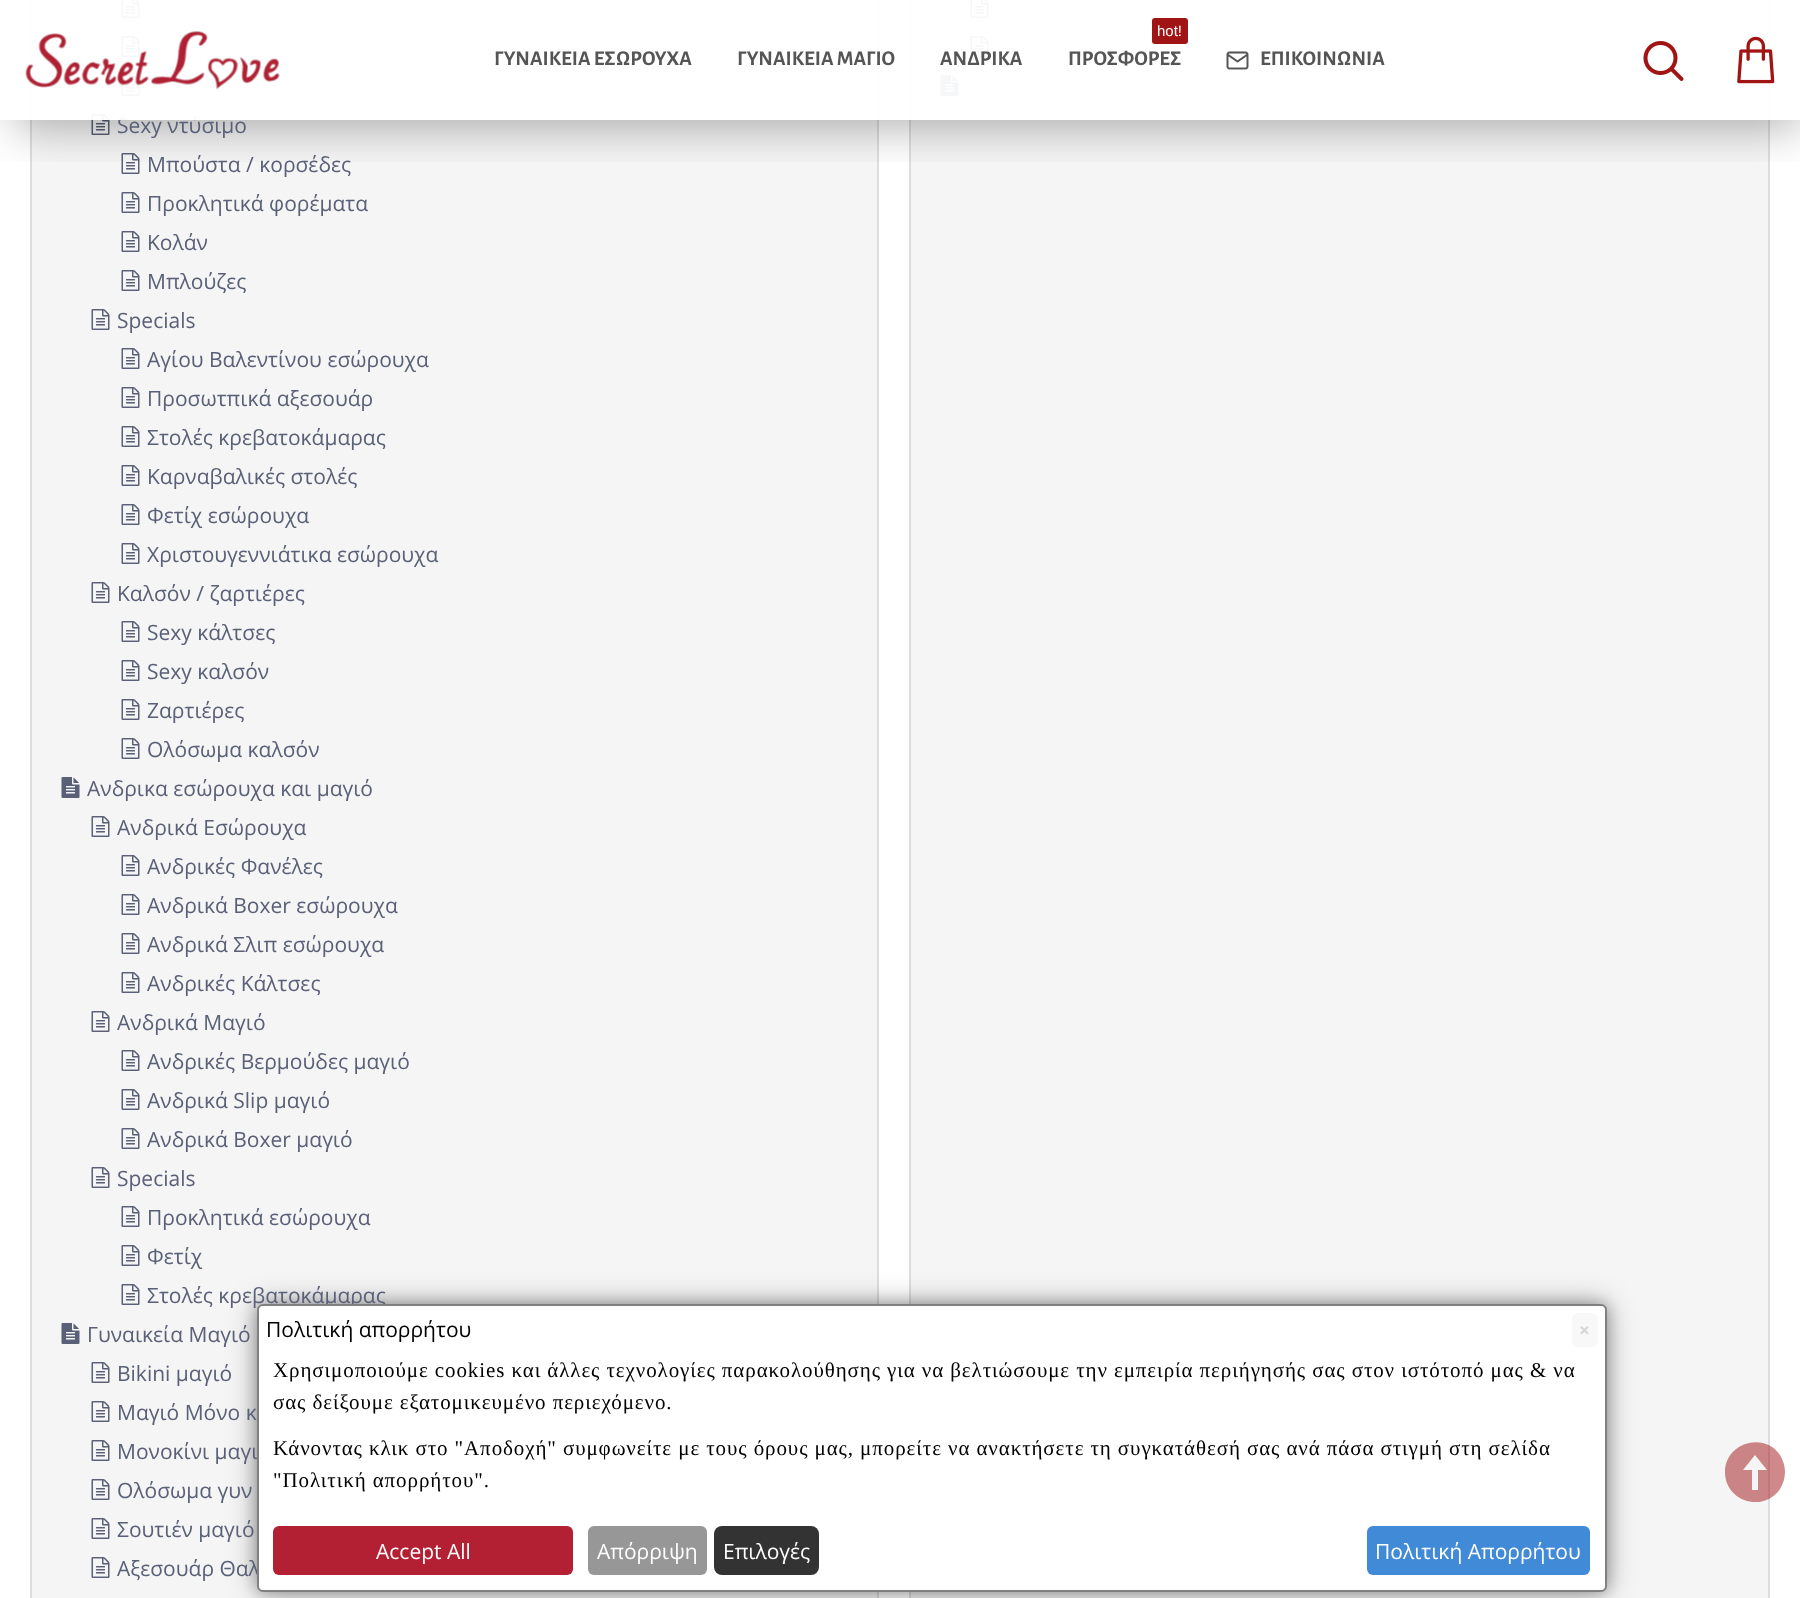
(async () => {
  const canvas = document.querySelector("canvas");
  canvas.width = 1800;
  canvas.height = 1598;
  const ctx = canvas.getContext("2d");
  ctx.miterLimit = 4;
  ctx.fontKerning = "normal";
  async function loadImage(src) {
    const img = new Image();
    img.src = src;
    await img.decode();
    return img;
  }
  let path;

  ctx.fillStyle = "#ffffff";
  ctx.fillRect(0, 0, 1800, 1598);
  ctx.fillStyle = "#f5f5f5";
  ctx.beginPath();
  ctx.rect(31, -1, 847, 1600);
  ctx.fill();
  ctx.strokeStyle = "#dddddd";
  ctx.lineWidth = 2;
  ctx.stroke();
  ctx.drawImage(await loadImage("img/5.png"), 121, 0, 19, 18);
  ctx.drawImage(await loadImage("img/6.png"), 121, 36, 19, 21);
  ctx.drawImage(await loadImage("img/6.png"), 121, 75, 19, 21);
  ctx.drawImage(await loadImage("img/6.png"), 91, 114, 19, 21);
  ctx.drawImage(await loadImage("img/6.png"), 121, 153, 19, 21);
  ctx.drawImage(await loadImage("img/6.png"), 121, 192, 19, 21);
  ctx.beginPath();
  ctx.rect(910, -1, 859, 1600);
  ctx.fill();
  ctx.stroke();
  ctx.drawImage(await loadImage("img/5.png"), 970, 0, 19, 18);
  ctx.drawImage(await loadImage("img/6.png"), 970, 36, 19, 21);
  ctx.drawImage(await loadImage("img/7.png"), 940, 75, 19, 21);
  ctx.save();
  ctx.beginPath();
  ctx.rect(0, 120, 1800, 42);
  ctx.clip();
  ctx.fillStyle = "rgba(0, 0, 0, 0.3)";
  ctx.filter = "blur(22.5px)";
  ctx.beginPath();
  ctx.rect(15, -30, 1785, 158);
  ctx.fill();
  ctx.filter = "none";
  ctx.restore();
  ctx.drawImage(await loadImage("img/6.png"), 121, 231, 19, 21);
  ctx.drawImage(await loadImage("img/6.png"), 121, 270, 19, 21);
  ctx.drawImage(await loadImage("img/6.png"), 91, 309, 19, 21);
  ctx.drawImage(await loadImage("img/6.png"), 121, 348, 19, 21);
  ctx.drawImage(await loadImage("img/6.png"), 121, 387, 19, 21);
  ctx.drawImage(await loadImage("img/6.png"), 121, 426, 19, 21);
  ctx.drawImage(await loadImage("img/6.png"), 121, 465, 19, 21);
  ctx.drawImage(await loadImage("img/6.png"), 121, 504, 19, 21);
  ctx.drawImage(await loadImage("img/6.png"), 121, 543, 19, 21);
  ctx.drawImage(await loadImage("img/6.png"), 91, 582, 19, 21);
  ctx.drawImage(await loadImage("img/6.png"), 121, 621, 19, 21);
  ctx.drawImage(await loadImage("img/6.png"), 121, 660, 19, 21);
  ctx.drawImage(await loadImage("img/6.png"), 121, 699, 19, 21);
  ctx.drawImage(await loadImage("img/6.png"), 121, 738, 19, 21);
  ctx.drawImage(await loadImage("img/7.png"), 61, 777, 19, 21);
  ctx.drawImage(await loadImage("img/6.png"), 91, 816, 19, 21);
  ctx.drawImage(await loadImage("img/6.png"), 121, 855, 19, 21);
  ctx.drawImage(await loadImage("img/6.png"), 121, 894, 19, 21);
  ctx.drawImage(await loadImage("img/6.png"), 121, 933, 19, 21);
  ctx.drawImage(await loadImage("img/6.png"), 121, 972, 19, 21);
  ctx.drawImage(await loadImage("img/6.png"), 91, 1011, 19, 21);
  ctx.drawImage(await loadImage("img/6.png"), 121, 1050, 19, 21);
  ctx.drawImage(await loadImage("img/6.png"), 121, 1089, 19, 21);
  ctx.drawImage(await loadImage("img/6.png"), 121, 1128, 19, 21);
  ctx.drawImage(await loadImage("img/6.png"), 91, 1167, 19, 21);
  ctx.drawImage(await loadImage("img/6.png"), 121, 1206, 19, 21);
  ctx.drawImage(await loadImage("img/6.png"), 121, 1245, 19, 21);
  ctx.drawImage(await loadImage("img/6.png"), 121, 1284, 19, 21);
  ctx.drawImage(await loadImage("img/7.png"), 61, 1323, 19, 21);
  ctx.drawImage(await loadImage("img/6.png"), 91, 1362, 19, 21);
  ctx.drawImage(await loadImage("img/6.png"), 91, 1401, 19, 21);
  ctx.drawImage(await loadImage("img/6.png"), 91, 1440, 19, 21);
  ctx.drawImage(await loadImage("img/6.png"), 91, 1479, 19, 21);
  ctx.drawImage(await loadImage("img/6.png"), 91, 1518, 19, 21);
  ctx.drawImage(await loadImage("img/6.png"), 91, 1557, 19, 21);
  ctx.fillStyle = "rgba(0, 0, 0, 0.3)";
  ctx.filter = "blur(15px)";
  ctx.beginPath();
  ctx.roundRect(257, 1304, 1350, 288, 6);
  ctx.fill();
  ctx.filter = "none";
  ctx.filter = "blur(7.5px)";
  ctx.beginPath();
  ctx.roundRect(257, 1304, 1350, 288, 6);
  ctx.fill();
  ctx.filter = "none";
  ctx.fillStyle = "rgba(160, 20, 21, 0.5)";
  path = new Path2D("M1725 1472C1725 1502 1764 1513 1780 1489C1783 1484 1785 1478 1785 1472C1785 1466 1783 1460 1780 1455C1764 1431 1725 1443 1725 1472ZM1767 1470H1758V1490H1752V1470H1743L1755 1455Z");
  ctx.fill(path);
  ctx.font = "21px Open Sans";
  ctx.fillStyle = "#596077";
  ctx.fillText("Sexy ντύσιμο", 117, 133);
  ctx.fillStyle = "rgba(255, 255, 255, 0.95)";
  ctx.fillRect(30, 0, 1740, 120);
  ctx.drawImage(await loadImage("img/2.png"), 1226, 51, 23, 19);
  ctx.font = "bold 21px Alegreya Sans";
  ctx.fillStyle = "#555555";
  ctx.fillText("ΕΠΙΚΟΙΝΩΝΙΑ", 1260, 65);
  ctx.fillStyle = "#a01415";
  ctx.beginPath();
  ctx.roundRect(1152, 18, 36, 26, 3);
  ctx.fill();
  ctx.font = "15px Liberation Sans";
  ctx.fillStyle = "#ffffff";
  ctx.fillText("hot!", 1157, 36);
  ctx.font = "bold 21px Alegreya Sans";
  ctx.fillStyle = "#555555";
  for (const [text, x, y] of [
    ["ΠΡΟΣΦΟΡΕΣ", 1068, 65],
    ["ΑΝΔΡΙΚΑ", 940, 65],
    ["ΓΥΝΑΙΚΕΙΑ ΜΑΓΙΟ", 737, 65],
    ["ΓΥΝΑΙΚΕΙΑ ΕΣΩΡΟΥΧΑ", 494, 65],
  ]) {
    ctx.fillText(text, x, y);
  }
  ctx.drawImage(await loadImage("img/4.png"), 1737, 36, 38, 48);
  ctx.drawImage(await loadImage("img/3.png"), 1643, 41, 41, 40);
  ctx.drawImage(await loadImage("img/1.png"), 25, 31, 255, 59);
  ctx.font = "21px Open Sans";
  ctx.fillStyle = "#596077";
  for (const [text, x, y] of [
    ["Μπούστα / κορσέδες", 147, 172],
    ["Προκλητικά φορέματα", 147, 211],
    ["Κολάν", 147, 250],
    ["Μπλούζες", 147, 289],
    ["Specials", 117, 328],
    ["Αγίου Βαλεντίνου εσώρουχα", 147, 367],
    ["Προσωτπικά αξεσουάρ", 147, 406],
    ["Στολές κρεβατοκάμαρας", 147, 445],
    ["Καρναβαλικές στολές", 147, 484],
    ["Φετίχ εσώρουχα", 147, 523],
    ["Χριστουγεννιάτικα εσώρουχα", 147, 562],
    ["Καλσόν / ζαρτιέρες", 117, 601],
    ["Sexy κάλτσες", 147, 640],
    ["Sexy καλσόν", 147, 679],
    ["Ζαρτιέρες", 147, 718],
    ["Ολόσωμα καλσόν", 147, 757],
    ["Ανδρικα εσώρουχα και μαγιό", 87, 796],
    ["Ανδρικά Εσώρουχα", 117, 835],
    ["Ανδρικές Φανέλες", 147, 874],
    ["Ανδρικά Boxer εσώρουχα", 147, 913],
    ["Ανδρικά Σλιπ εσώρουχα", 147, 952],
    ["Ανδρικές Κάλτσες", 147, 991],
    ["Ανδρικά Μαγιό", 117, 1030],
    ["Ανδρικές Βερμούδες μαγιό", 147, 1069],
    ["Ανδρικά Slip μαγιό", 147, 1108],
    ["Ανδρικά Boxer μαγιό", 147, 1147],
    ["Specials", 117, 1186],
    ["Προκλητικά εσώρουχα", 147, 1225],
    ["Φετίχ", 147, 1264],
    ["Στολές κρεβατοκάμαρας", 147, 1303],
    ["Γυναικεία Μαγιό", 87, 1342],
    ["Bikini μαγιό", 117, 1381],
    ["Μαγιό Μόνο κ", 117, 1420],
    ["Μονοκίνι μαγι", 117, 1459],
    ["Ολόσωμα γυν", 117, 1498],
    ["Σουτιέν μαγιό", 117, 1537],
    ["Αξεσουάρ Θαλ", 117, 1576],
  ]) {
    ctx.fillText(text, x, y);
  }
  ctx.fillStyle = "#ffffff";
  ctx.beginPath();
  ctx.roundRect(258, 1305, 1348, 286, 5);
  ctx.fill();
  ctx.strokeStyle = "#808080";
  ctx.stroke();
  ctx.fillStyle = "#000000";
  ctx.fillText("Πολιτική απορρήτου", 266, 1337);
  ctx.fillStyle = "#f8f8f8";
  ctx.beginPath();
  ctx.roundRect(1572, 1313, 26, 34, 6);
  ctx.fill();
  ctx.font = "bold 19px Open Sans";
  ctx.fillStyle = "#d6d6d6";
  ctx.fillText("×", 1579, 1337);
  ctx.letterSpacing = "0.9px";
  ctx.font = "21px Liberation Serif";
  ctx.fillStyle = "#000000";
  for (const [text, x, y] of [
    ["Χρησιμοποιούμε cookies και άλλες τεχνολογίες παρακολούθησης για να βελτιώσουμε την εμπειρία περιήγησής σας στον ιστότοπό μας & να", 273, 1377],
    ["σας δείξουμε εξατομικευμένο περιεχόμενο.", 273, 1409],
    ["Κάνοντας κλικ στο \"Αποδοχή\" συμφωνείτε με τους όρους μας, μπορείτε να ανακτήσετε τη συγκατάθεσή σας ανά πάσα στιγμή στη σελίδα", 273, 1455],
    ["\"Πολιτική απορρήτου\".", 273, 1487],
  ]) {
    ctx.fillText(text, x, y);
  }
  ctx.fillStyle = "#b32033";
  ctx.beginPath();
  ctx.roundRect(273, 1526, 300, 49, 6);
  ctx.fill();
  ctx.letterSpacing = "0px";
  ctx.font = "21px Open Sans";
  ctx.fillStyle = "#ffffff";
  ctx.fillText("Accept All", 376, 1559);
  ctx.fillStyle = "#979797";
  ctx.beginPath();
  ctx.roundRect(588, 1526, 119, 49, 6);
  ctx.fill();
  ctx.fillStyle = "#ffffff";
  ctx.fillText("Απόρριψη", 597, 1559);
  ctx.fillStyle = "#333333";
  ctx.beginPath();
  ctx.roundRect(714, 1526, 105, 49, 8);
  ctx.fill();
  ctx.fillStyle = "#ffffff";
  ctx.fillText("Επιλογές", 723, 1559);
  ctx.fillStyle = "#408ad7";
  ctx.beginPath();
  ctx.roundRect(1367, 1526, 223, 49, 6);
  ctx.fill();
  ctx.fillStyle = "#ffffff";
  ctx.fillText("Πολιτική Απορρήτου", 1375, 1559);
})();
